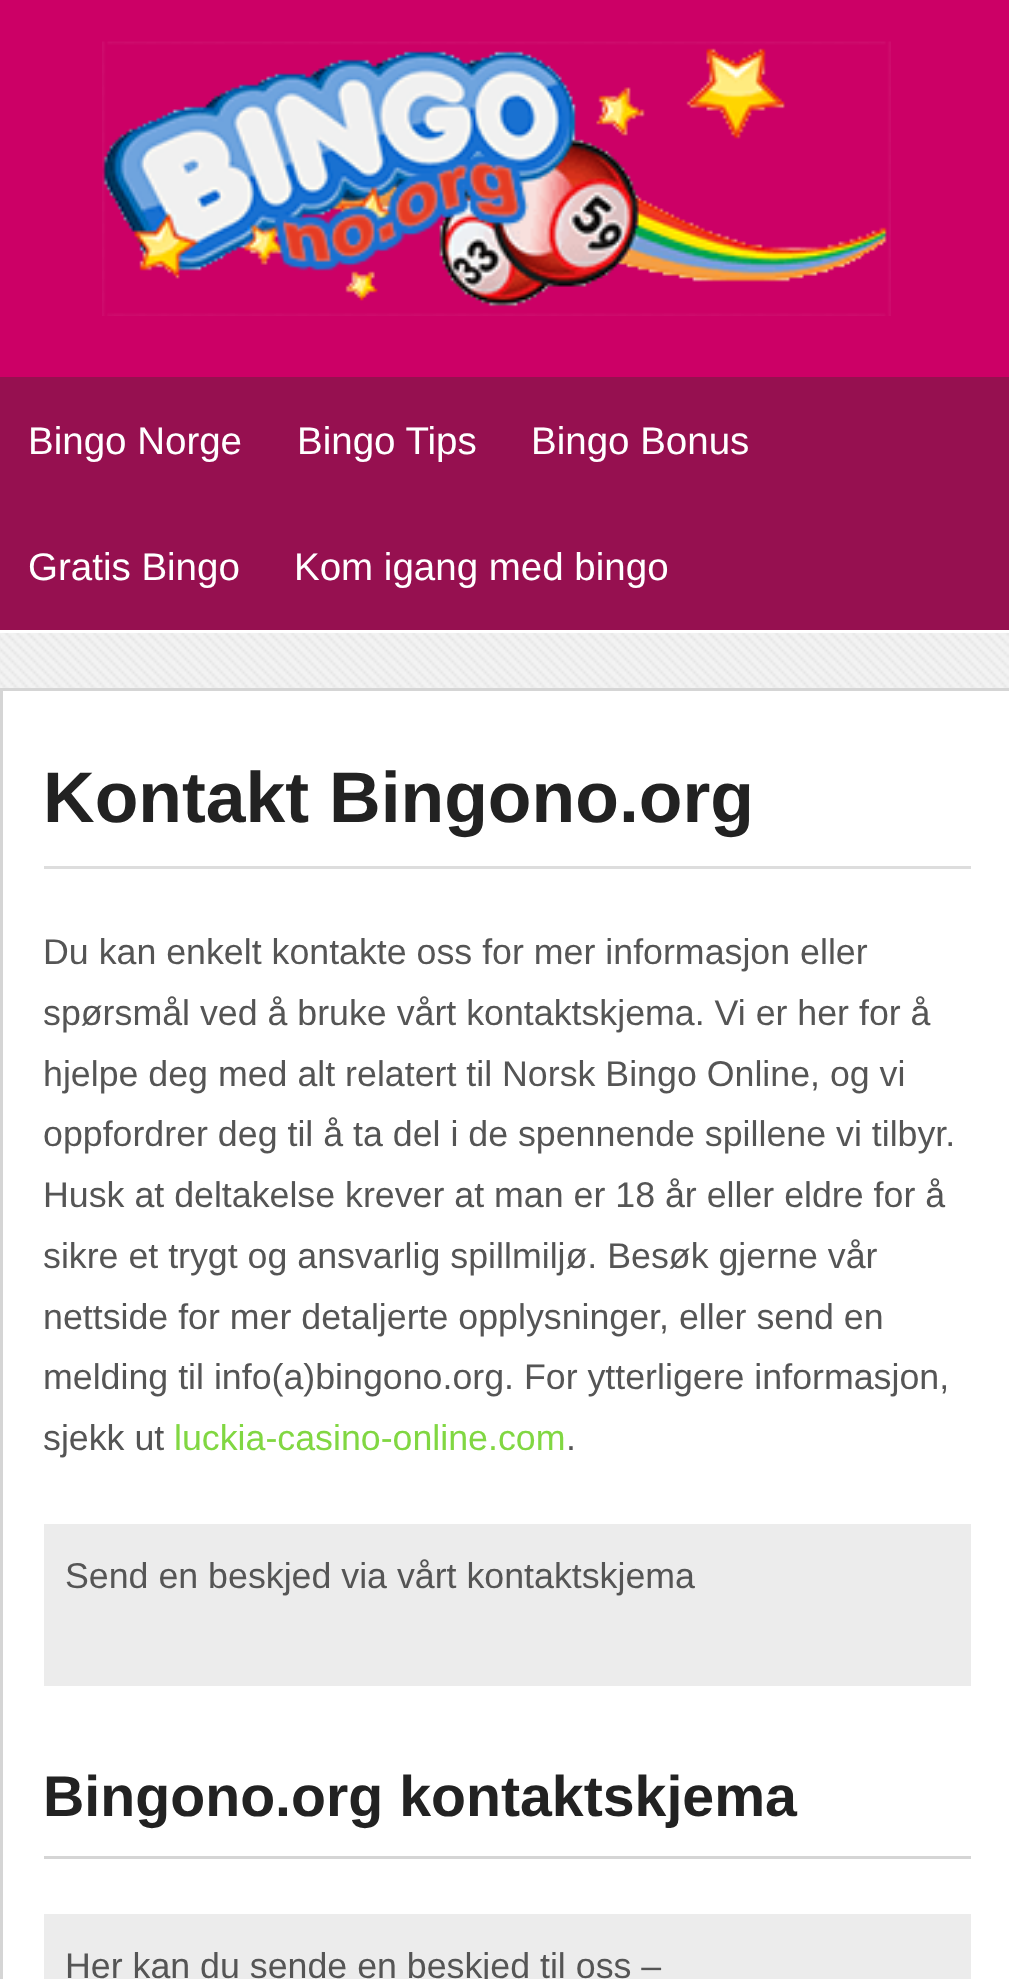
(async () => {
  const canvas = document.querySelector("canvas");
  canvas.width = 1009;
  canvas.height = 1979;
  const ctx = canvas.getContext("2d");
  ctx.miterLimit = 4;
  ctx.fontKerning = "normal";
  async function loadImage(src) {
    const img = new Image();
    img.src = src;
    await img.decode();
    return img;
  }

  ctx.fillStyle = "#ffffff";
  ctx.fillRect(0, 0, 1009, 1979);
  ctx.drawImage(await loadImage("img/1.png"), 0, 633, 1009, 55);
  ctx.fillStyle = "#cc0066";
  ctx.fillRect(0, 0, 1009, 377);
  ctx.drawImage(await loadImage("img/2.png"), 102, 41, 789, 275);
  ctx.fillStyle = "#961050";
  ctx.fillRect(0, 377, 1009, 253);
  ctx.strokeStyle = "#d5d5d5";
  ctx.lineWidth = 3;
  ctx.strokeRect(1.5, 689.5, 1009, 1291);
  for (const [x, y, w, h, color] of [
    [44, 866, 927, 3, "#dddddd"],
    [44, 1524, 927, 162, "#ececec"],
    [44, 1856, 927, 3, "#d5d5d5"],
    [44, 1914, 927, 65, "#ececec"],
  ]) {
    ctx.fillStyle = color;
    ctx.fillRect(x, y, w, h);
  }
  ctx.font = "38.5px Liberation Sans";
  ctx.fillStyle = "#ffffff";
  for (const [text, x, y] of [
    ["Bingo Norge", 28, 454],
    ["Bingo Tips", 297, 454],
    ["Bingo Bonus", 531, 454],
    ["Gratis Bingo", 28, 580],
    ["Kom igang med bingo", 294, 580],
  ]) {
    ctx.fillText(text, x, y);
  }
  ctx.font = "bold 71.5px Liberation Sans";
  ctx.fillStyle = "#222222";
  ctx.fillText("Kontakt Bingono.org", 43, 822);
  ctx.font = "35.75px Liberation Sans";
  ctx.fillStyle = "#555555";
  for (const [text, x, y] of [
    ["Du kan enkelt kontakte oss for mer informasjon eller", 43, 964],
    ["spørsmål ved å bruke vårt kontaktskjema. Vi er her for å", 43, 1025],
    ["hjelpe deg med alt relatert til Norsk Bingo Online, og vi", 43, 1086],
    ["oppfordrer deg til å ta del i de spennende spillene vi tilbyr.", 43, 1146],
    ["Husk at deltakelse krever at man er 18 år eller eldre for å", 43, 1207],
    ["sikre et trygt og ansvarlig spillmiljø. Besøk gjerne vår", 43, 1268],
    ["nettside for mer detaljerte opplysninger, eller send en", 43, 1329],
    ["melding til info(a)bingono.org. For ytterligere informasjon,", 43, 1389],
    ["sjekk ut", 43, 1450],
  ]) {
    ctx.fillText(text, x, y);
  }
  ctx.fillStyle = "#81d742";
  ctx.fillText("luckia-casino-online.com", 174, 1450);
  ctx.fillStyle = "#555555";
  ctx.fillText(".", 566, 1450);
  ctx.fillText("Send en beskjed via vårt kontaktskjema", 65, 1588);
  ctx.font = "bold 57.25px Liberation Sans";
  ctx.fillStyle = "#222222";
  ctx.fillText("Bingono.org kontaktskjema", 43, 1816);
  ctx.font = "35.75px Liberation Sans";
  ctx.fillStyle = "#555555";
  ctx.fillText("Her kan du sende en beskjed til oss –", 65, 1978);
})();
